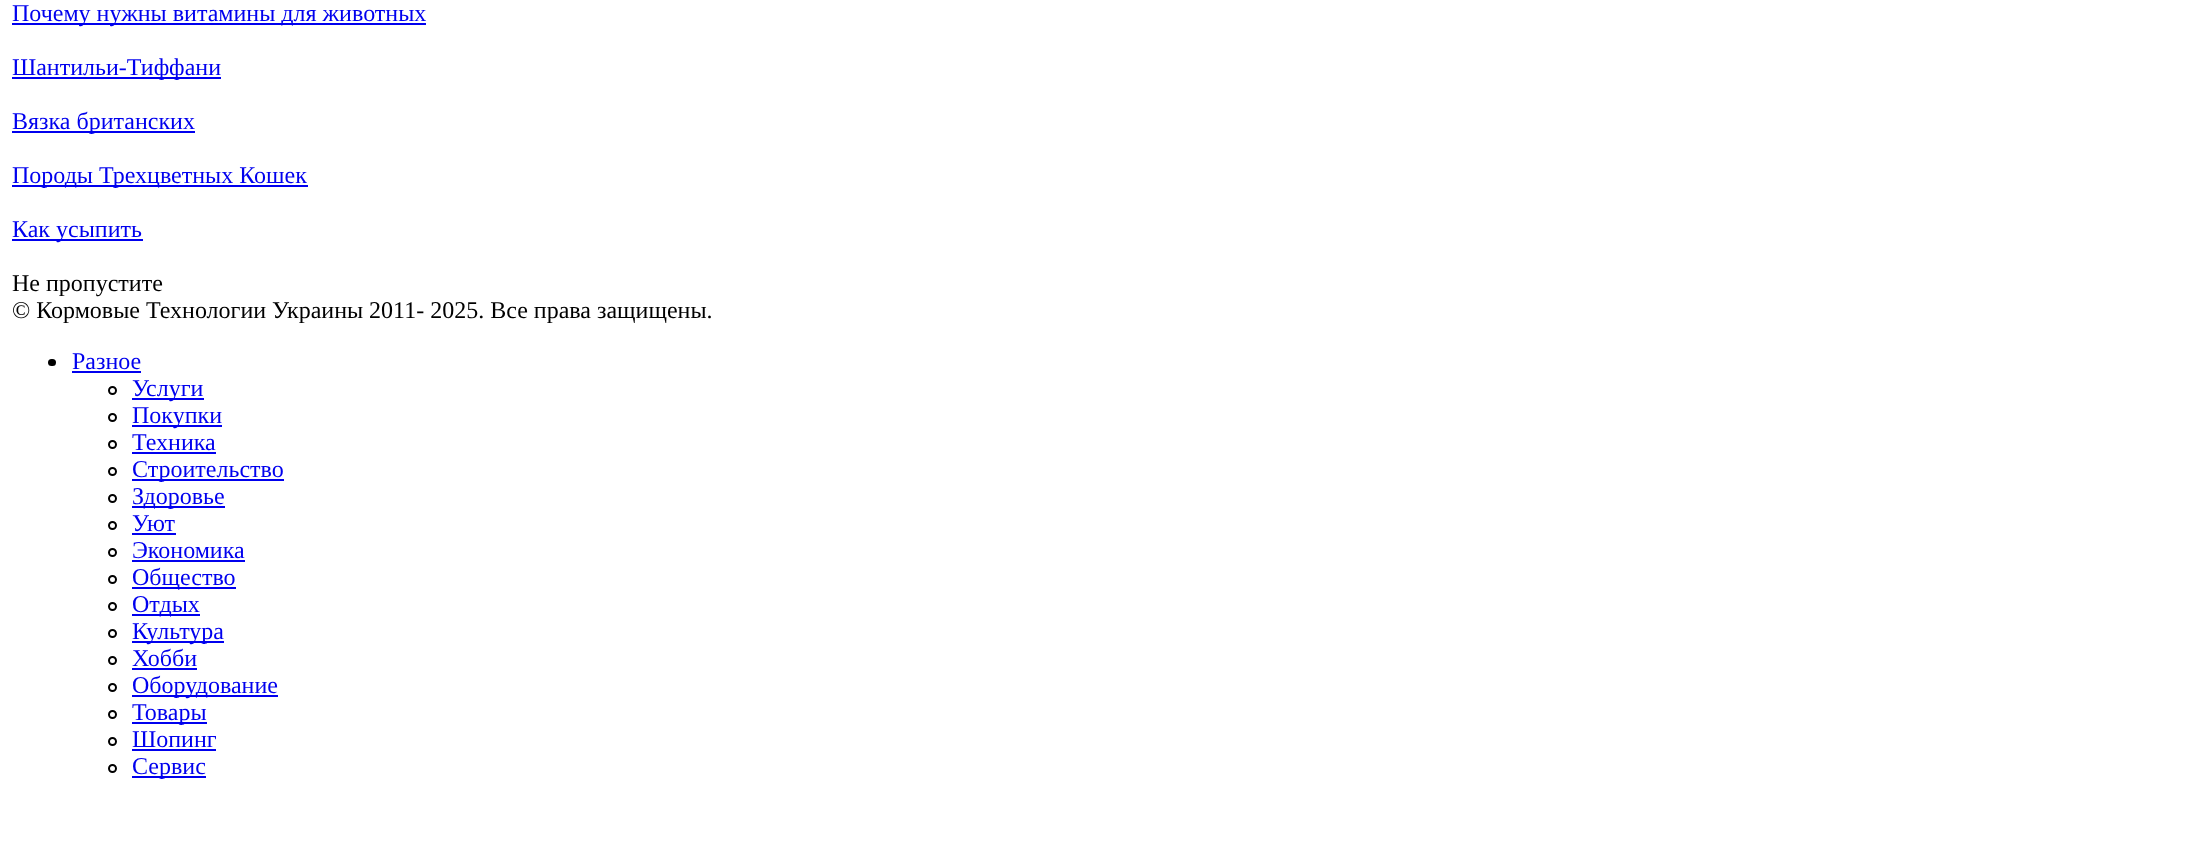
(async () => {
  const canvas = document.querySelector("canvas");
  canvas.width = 2196;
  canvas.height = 863;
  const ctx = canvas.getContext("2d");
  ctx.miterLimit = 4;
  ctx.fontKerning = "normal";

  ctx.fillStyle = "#ffffff";
  ctx.fillRect(0, 0, 2196, 863);
  for (const [x, y, w, h, color] of [
    [12, 23, 414, 2, "#0000ee"],
    [12, 77, 209, 2, "#0000ee"],
    [12, 131, 183, 2, "#0000ee"],
    [12, 185, 296, 2, "#0000ee"],
    [12, 239, 131, 2, "#0000ee"],
  ]) {
    ctx.fillStyle = color;
    ctx.fillRect(x, y, w, h);
  }
  ctx.fillStyle = "#000000";
  ctx.beginPath();
  ctx.roundRect(48, 359, 8, 7, 3.5);
  ctx.fill();
  ctx.fillStyle = "#0000ee";
  ctx.fillRect(72, 371, 69, 2);
  ctx.beginPath();
  ctx.arc(112.5, 390.5, 3.5, 0, Math.PI * 2);
  ctx.strokeStyle = "#000000";
  ctx.lineWidth = 2;
  ctx.stroke();
  ctx.fillRect(132, 398, 72, 2);
  ctx.beginPath();
  ctx.arc(112.5, 417.5, 3.5, 0, Math.PI * 2);
  ctx.stroke();
  ctx.fillRect(132, 425, 90, 2);
  ctx.beginPath();
  ctx.arc(112.5, 444.5, 3.5, 0, Math.PI * 2);
  ctx.stroke();
  ctx.fillRect(132, 452, 84, 2);
  ctx.beginPath();
  ctx.arc(112.5, 471.5, 3.5, 0, Math.PI * 2);
  ctx.stroke();
  ctx.fillRect(132, 479, 152, 2);
  ctx.beginPath();
  ctx.arc(112.5, 498.5, 3.5, 0, Math.PI * 2);
  ctx.stroke();
  ctx.fillRect(132, 506, 93, 2);
  ctx.beginPath();
  ctx.arc(112.5, 525.5, 3.5, 0, Math.PI * 2);
  ctx.stroke();
  ctx.fillRect(132, 533, 44, 2);
  ctx.beginPath();
  ctx.arc(112.5, 552.5, 3.5, 0, Math.PI * 2);
  ctx.stroke();
  ctx.fillRect(132, 560, 113, 2);
  ctx.beginPath();
  ctx.arc(112.5, 579.5, 3.5, 0, Math.PI * 2);
  ctx.stroke();
  ctx.fillRect(132, 587, 104, 2);
  ctx.beginPath();
  ctx.arc(112.5, 606.5, 3.5, 0, Math.PI * 2);
  ctx.stroke();
  ctx.fillRect(132, 614, 68, 2);
  ctx.beginPath();
  ctx.arc(112.5, 633.5, 3.5, 0, Math.PI * 2);
  ctx.stroke();
  ctx.fillRect(132, 641, 92, 2);
  ctx.beginPath();
  ctx.arc(112.5, 660.5, 3.5, 0, Math.PI * 2);
  ctx.stroke();
  ctx.fillRect(132, 668, 65, 2);
  ctx.beginPath();
  ctx.arc(112.5, 687.5, 3.5, 0, Math.PI * 2);
  ctx.stroke();
  ctx.fillRect(132, 695, 146, 2);
  ctx.beginPath();
  ctx.arc(112.5, 714.5, 3.5, 0, Math.PI * 2);
  ctx.stroke();
  ctx.fillRect(132, 722, 75, 2);
  ctx.beginPath();
  ctx.arc(112.5, 741.5, 3.5, 0, Math.PI * 2);
  ctx.stroke();
  ctx.fillRect(132, 749, 84, 2);
  ctx.beginPath();
  ctx.arc(112.5, 768.5, 3.5, 0, Math.PI * 2);
  ctx.stroke();
  ctx.fillRect(132, 776, 74, 2);
  ctx.font = "24px Liberation Serif";
  for (const [text, x, y] of [
    ["Почему нужны витамины для животных", 12, 21],
    ["Шантильи-Тиффани", 12, 75],
    ["Вязка британских", 12, 129],
    ["Породы Трехцветных Кошек", 12, 183],
    ["Как усыпить", 12, 237],
  ]) {
    ctx.fillText(text, x, y);
  }
  ctx.fillStyle = "#000000";
  ctx.fillText("Не пропустите", 12, 291);
  ctx.fillText("© Кормовые Технологии Украины 2011- 2025. Все права защищены.", 12, 318);
  ctx.fillStyle = "#0000ee";
  for (const [text, x, y] of [
    ["Разное", 72, 369],
    ["Услуги", 132, 396],
    ["Покупки", 132, 423],
    ["Техника", 132, 450],
    ["Строительство", 132, 477],
    ["Здоровье", 132, 504],
    ["Уют", 132, 531],
    ["Экономика", 132, 558],
    ["Общество", 132, 585],
    ["Отдых", 132, 612],
    ["Культура", 132, 639],
    ["Хобби", 132, 666],
    ["Оборудование", 132, 693],
    ["Товары", 132, 720],
    ["Шопинг", 132, 747],
    ["Сервис", 132, 774],
  ]) {
    ctx.fillText(text, x, y);
  }
})();
